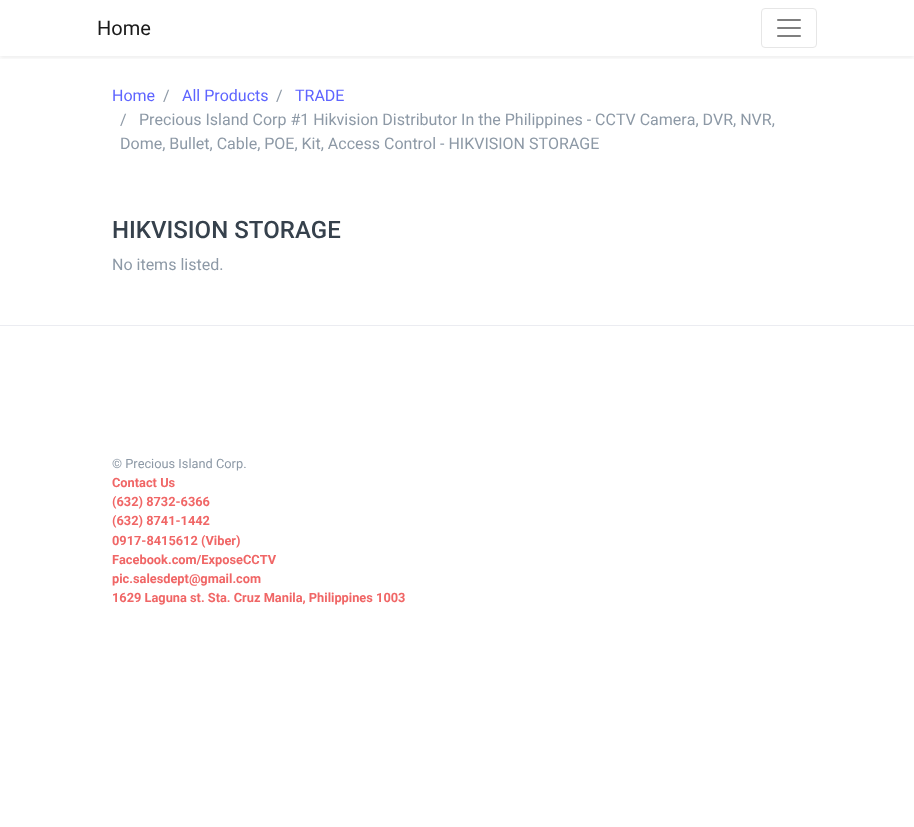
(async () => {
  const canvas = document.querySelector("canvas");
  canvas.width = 914;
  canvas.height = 827;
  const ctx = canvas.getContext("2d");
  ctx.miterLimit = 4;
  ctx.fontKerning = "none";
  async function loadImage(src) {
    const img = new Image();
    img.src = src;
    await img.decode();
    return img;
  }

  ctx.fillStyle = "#ffffff";
  ctx.fillRect(0, 0, 914, 827);
  ctx.save();
  ctx.beginPath();
  ctx.rect(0, 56, 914, 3);
  ctx.clip();
  ctx.fillStyle = "rgba(0, 0, 0, 0.07)";
  ctx.filter = "blur(2px)";
  ctx.beginPath();
  ctx.rect(0, 2, 914, 56);
  ctx.fill();
  ctx.filter = "none";
  ctx.restore();
  ctx.beginPath();
  ctx.roundRect(761.5, 8.5, 55, 39, 3.5);
  ctx.strokeStyle = "#e6e6e6";
  ctx.stroke();
  ctx.drawImage(await loadImage("img/1.png"), 777, 19, 24, 18);
  ctx.fillStyle = "#ebecf1";
  ctx.fillRect(0, 325, 914, 1);
  ctx.font = "20px Roboto";
  ctx.fillStyle = "#1a1a1a";
  ctx.fillText("Home", 97, 35);
  ctx.font = "16px Roboto";
  ctx.fillStyle = "#5e64ff";
  ctx.fillText("Home", 112, 101);
  ctx.fillStyle = "#8d99a6";
  ctx.fillText("/", 163, 101);
  ctx.fillStyle = "#5e64ff";
  ctx.fillText("All Products", 182, 101);
  ctx.fillStyle = "#8d99a6";
  ctx.fillText("/", 276, 101);
  ctx.fillStyle = "#5e64ff";
  ctx.fillText("TRADE", 295, 101);
  ctx.fillStyle = "#8d99a6";
  for (const [text, x, y] of [
    ["/", 120, 125],
    ["Precious Island Corp #1 Hikvision Distributor In the Philippines - CCTV Camera, DVR, NVR,", 139, 125],
    ["Dome, Bullet, Cable, POE, Kit, Access Control - HIKVISION STORAGE", 120, 149],
  ]) {
    ctx.fillText(text, x, y);
  }
  ctx.font = "500 24px Roboto";
  ctx.fillStyle = "#36414c";
  ctx.fillText("HIKVISION STORAGE", 112, 238);
  ctx.font = "16px Roboto";
  ctx.fillStyle = "#8d99a6";
  ctx.fillText("No items listed.", 112, 270);
  ctx.font = "12.8px Roboto";
  ctx.fillText("© Precious Island Corp.", 112, 468);
  ctx.font = "bold 12.8px Roboto";
  ctx.fillStyle = "#f06666";
  for (const [text, x, y] of [
    ["Contact Us", 112, 487],
    ["(632) 8732-6366", 112, 506],
    ["(632) 8741-1442", 112, 525],
    ["0917-8415612 (Viber)", 112, 545],
    ["Facebook.com/ExposeCCTV", 112, 564],
    ["pic.salesdept@gmail.com", 112, 583],
    ["1629 Laguna st. Sta. Cruz Manila, Philippines 1003", 112, 602],
  ]) {
    ctx.fillText(text, x, y);
  }
})();
